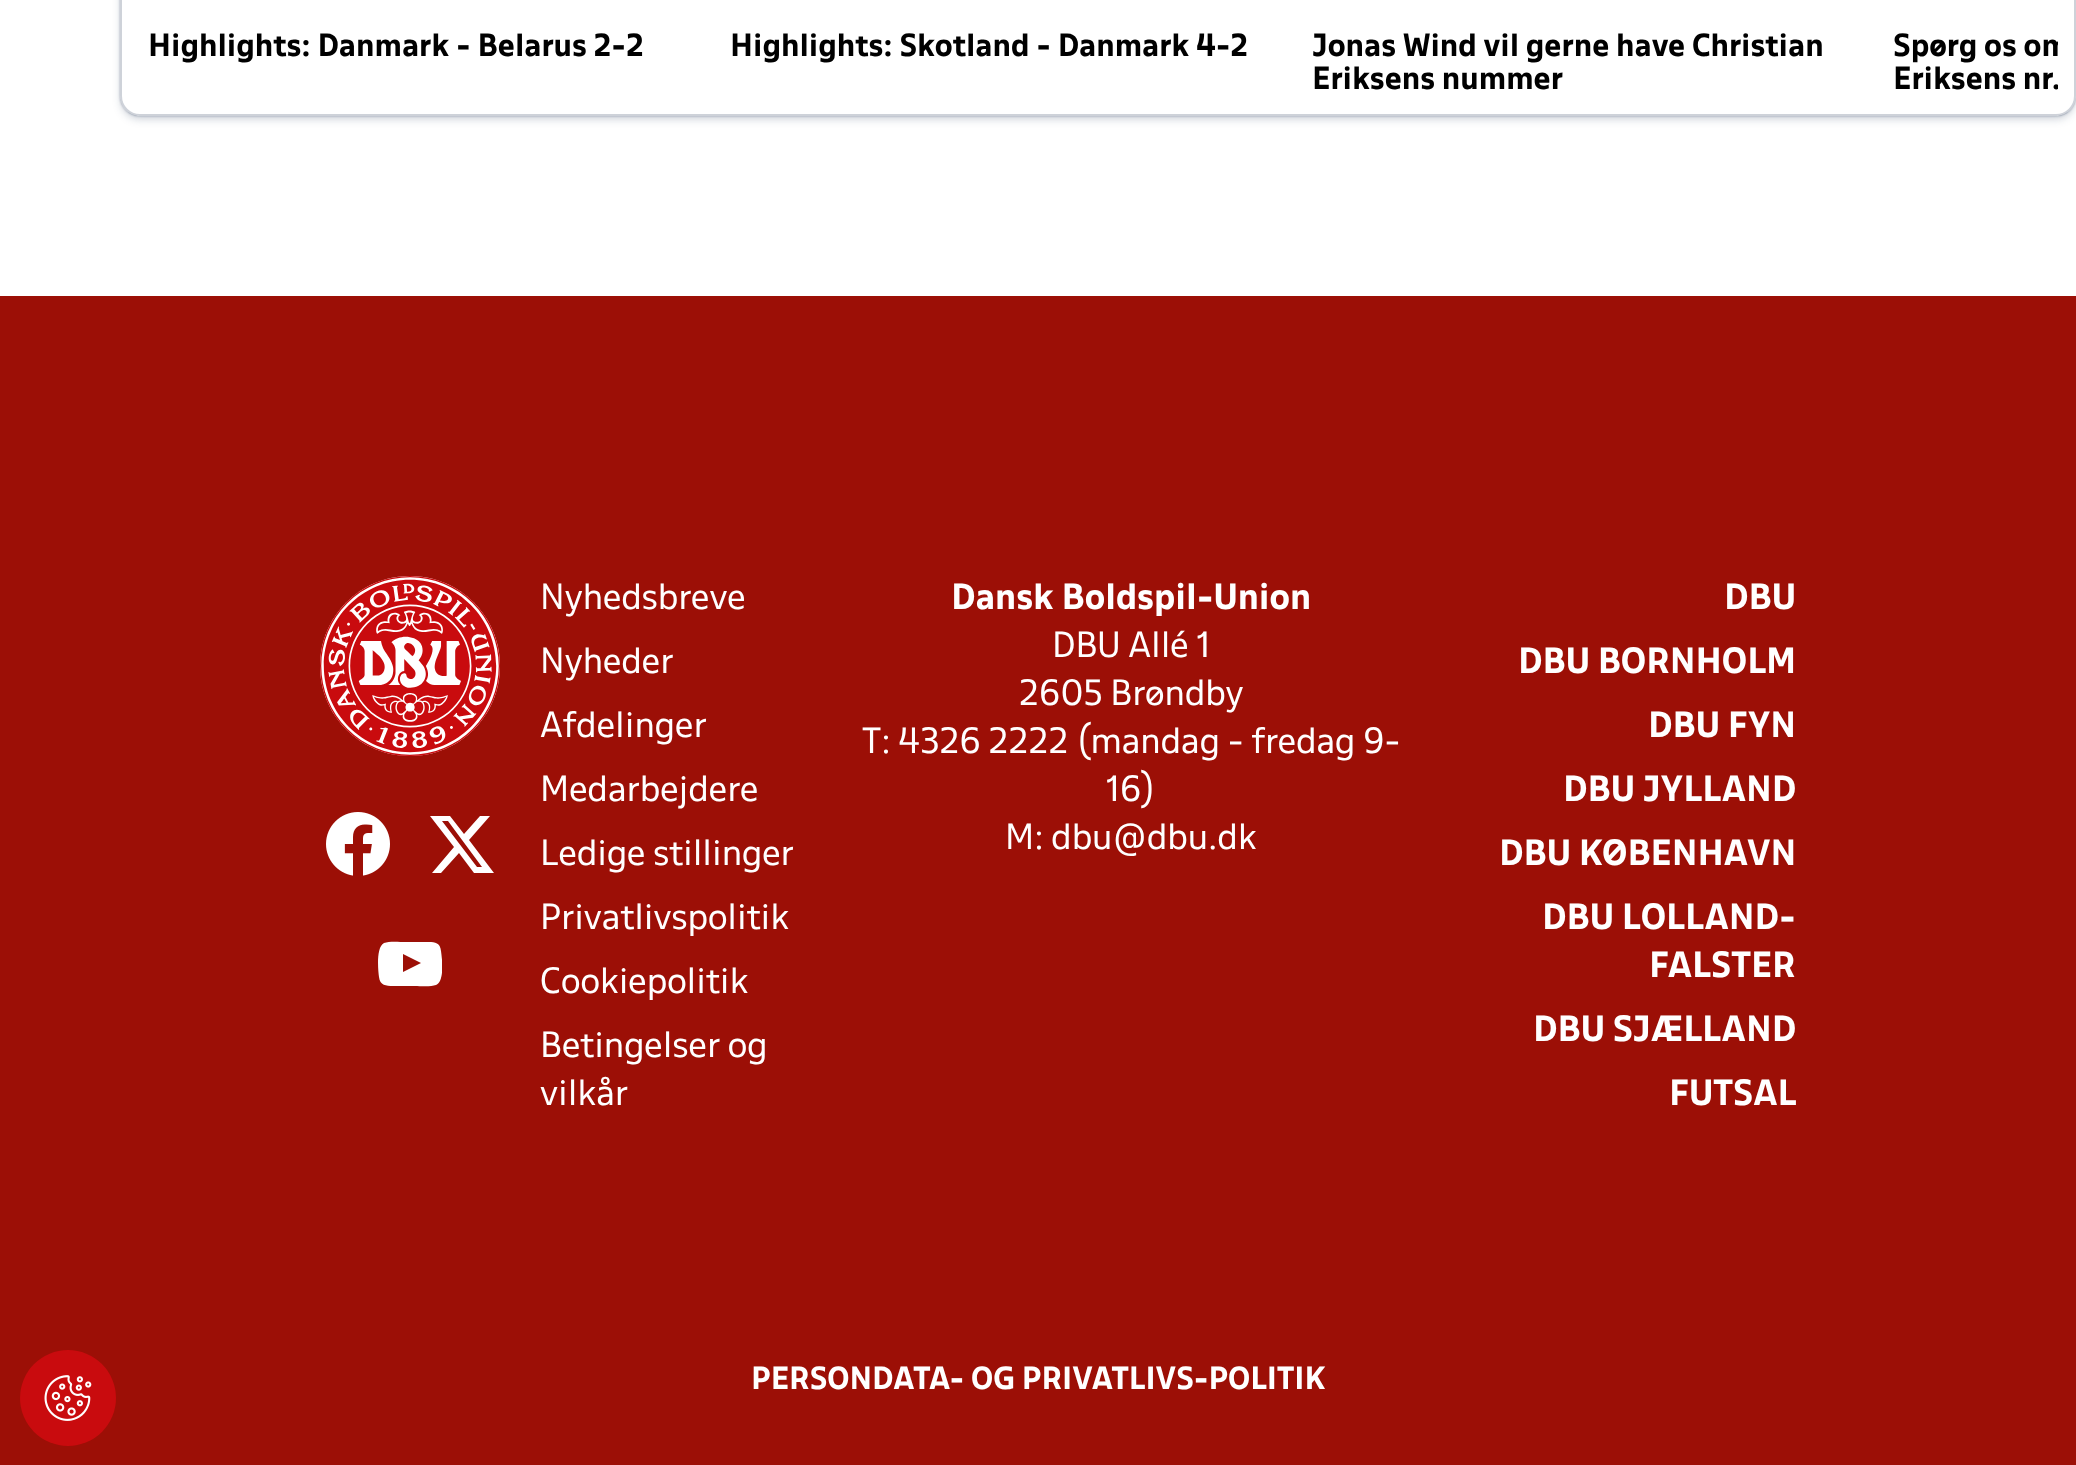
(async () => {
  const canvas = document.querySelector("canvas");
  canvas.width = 2076;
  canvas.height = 1465;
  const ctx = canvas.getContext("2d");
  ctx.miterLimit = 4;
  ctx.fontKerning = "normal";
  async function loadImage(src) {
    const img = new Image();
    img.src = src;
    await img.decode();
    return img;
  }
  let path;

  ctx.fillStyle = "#ffffff";
  ctx.fillRect(0, 0, 2076, 1465);
  ctx.save();
  path = new Path2D("M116 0H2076V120H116ZM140-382H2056C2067-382 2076-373 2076-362V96C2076 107 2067 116 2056 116H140C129 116 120 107 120 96V-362C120-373 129-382 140-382Z");
  ctx.clip(path, "evenodd");
  ctx.fillStyle = "rgba(9, 30, 66, 0.31)";
  ctx.filter = "blur(1px)";
  ctx.beginPath();
  ctx.roundRect(120, -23, 1956, 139, 20);
  ctx.fill();
  ctx.filter = "none";
  ctx.restore();
  ctx.save();
  path = new Path2D("M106 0H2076V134H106ZM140-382H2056C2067-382 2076-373 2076-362V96C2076 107 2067 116 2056 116H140C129 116 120 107 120 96V-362C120-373 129-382 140-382Z");
  ctx.clip(path, "evenodd");
  ctx.fillStyle = "rgba(9, 30, 66, 0.25)";
  ctx.filter = "blur(5px)";
  ctx.beginPath();
  ctx.roundRect(122, -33, 1952, 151, 18);
  ctx.fill();
  ctx.filter = "none";
  ctx.restore();
  ctx.beginPath();
  ctx.roundRect(121, -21, 1954, 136, 19);
  ctx.strokeStyle = "rgba(9, 30, 66, 0.2)";
  ctx.lineWidth = 2;
  ctx.stroke();
  ctx.fillStyle = "#9c0f06";
  ctx.fillRect(0, 296, 2076, 1169);
  ctx.fillStyle = "#c90b0e";
  ctx.beginPath();
  ctx.arc(68, 1398, 48, 0, Math.PI * 2);
  ctx.fill();
  ctx.drawImage(await loadImage("img/1.png"), 44, 1375, 48, 46);
  ctx.drawImage(await loadImage("img/2.png"), 320, 576, 180, 180);
  ctx.drawImage(await loadImage("img/3.png"), 326, 812, 64, 64);
  ctx.fillStyle = "#ffffff";
  path = new Path2D("M480 816H490L469 840L494 873H474L459 853L441 873H432L454 847L430 816H450L464 834ZM477 867H482L448 821H442Z");
  ctx.fill(path);
  ctx.save();
  ctx.beginPath();
  ctx.rect(378, 932, 64, 64);
  ctx.clip();
  path = new Path2D("M441 951C440 941 433 942 425 942H405C400 942 389 941 384 943C376 947 378 970 379 977C380 987 389 986 397 986H415C420 986 431 987 436 985C445 981 442 958 441 951ZM403 972V954L421 963Z");
  ctx.fill(path);
  ctx.restore();
  ctx.font = "bold 28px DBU";
  ctx.fillStyle = "#000000";
  for (const [text, x, y] of [
    ["Highlights: Danmark - Belarus 2-2", 148, 56],
    ["Highlights: Skotland - Danmark 4-2", 730, 56],
    ["Jonas Wind vil gerne have Christian", 1312, 56],
    ["Eriksens nummer", 1312, 89],
  ]) {
    ctx.fillText(text, x, y);
  }
  ctx.save();
  ctx.beginPath();
  ctx.rect(1884, 22, 174, 76);
  ctx.clip();
  ctx.fillText("Spørg os om", 1893, 56);
  ctx.fillText("Eriksens nr.", 1893, 89);
  ctx.restore();
  ctx.font = "32px DBU";
  ctx.fillStyle = "#ffffff";
  for (const [text, x, y] of [
    ["Nyhedsbreve", 540, 609],
    ["Nyheder", 540, 673],
    ["Afdelinger", 540, 737],
    ["Medarbejdere", 540, 801],
    ["Ledige stillinger", 540, 865],
    ["Privatlivspolitik", 540, 929],
    ["Cookiepolitik", 540, 993],
    ["Betingelser og", 540, 1057],
    ["vilkår", 540, 1105],
  ]) {
    ctx.fillText(text, x, y);
  }
  ctx.font = "bold 32px DBU";
  ctx.fillText("Dansk Boldspil-Union", 951, 609);
  ctx.font = "32px DBU";
  for (const [text, x, y] of [
    ["DBU Allé 1", 1052, 657],
    ["2605 Brøndby", 1019, 705],
    ["T: 4326 2222 (mandag - fredag 9-", 862, 753],
    ["16)", 1106, 801],
    ["M: dbu@dbu.dk", 1005, 849],
  ]) {
    ctx.fillText(text, x, y);
  }
  ctx.font = "bold 32px DBU";
  for (const [text, x, y] of [
    ["DBU", 1724, 609],
    ["DBU BORNHOLM", 1518, 673],
    ["DBU FYN", 1648, 737],
    ["DBU JYLLAND", 1563, 801],
    ["DBU KØBENHAVN", 1499, 865],
    ["DBU LOLLAND-", 1542, 929],
    ["FALSTER", 1649, 977],
    ["DBU SJÆLLAND", 1533, 1041],
    ["FUTSAL", 1669, 1105],
  ]) {
    ctx.fillText(text, x, y);
  }
  ctx.font = "bold 28px DBU";
  ctx.fillText("PERSONDATA- OG PRIVATLIVS-POLITIK", 751, 1389);
})();
